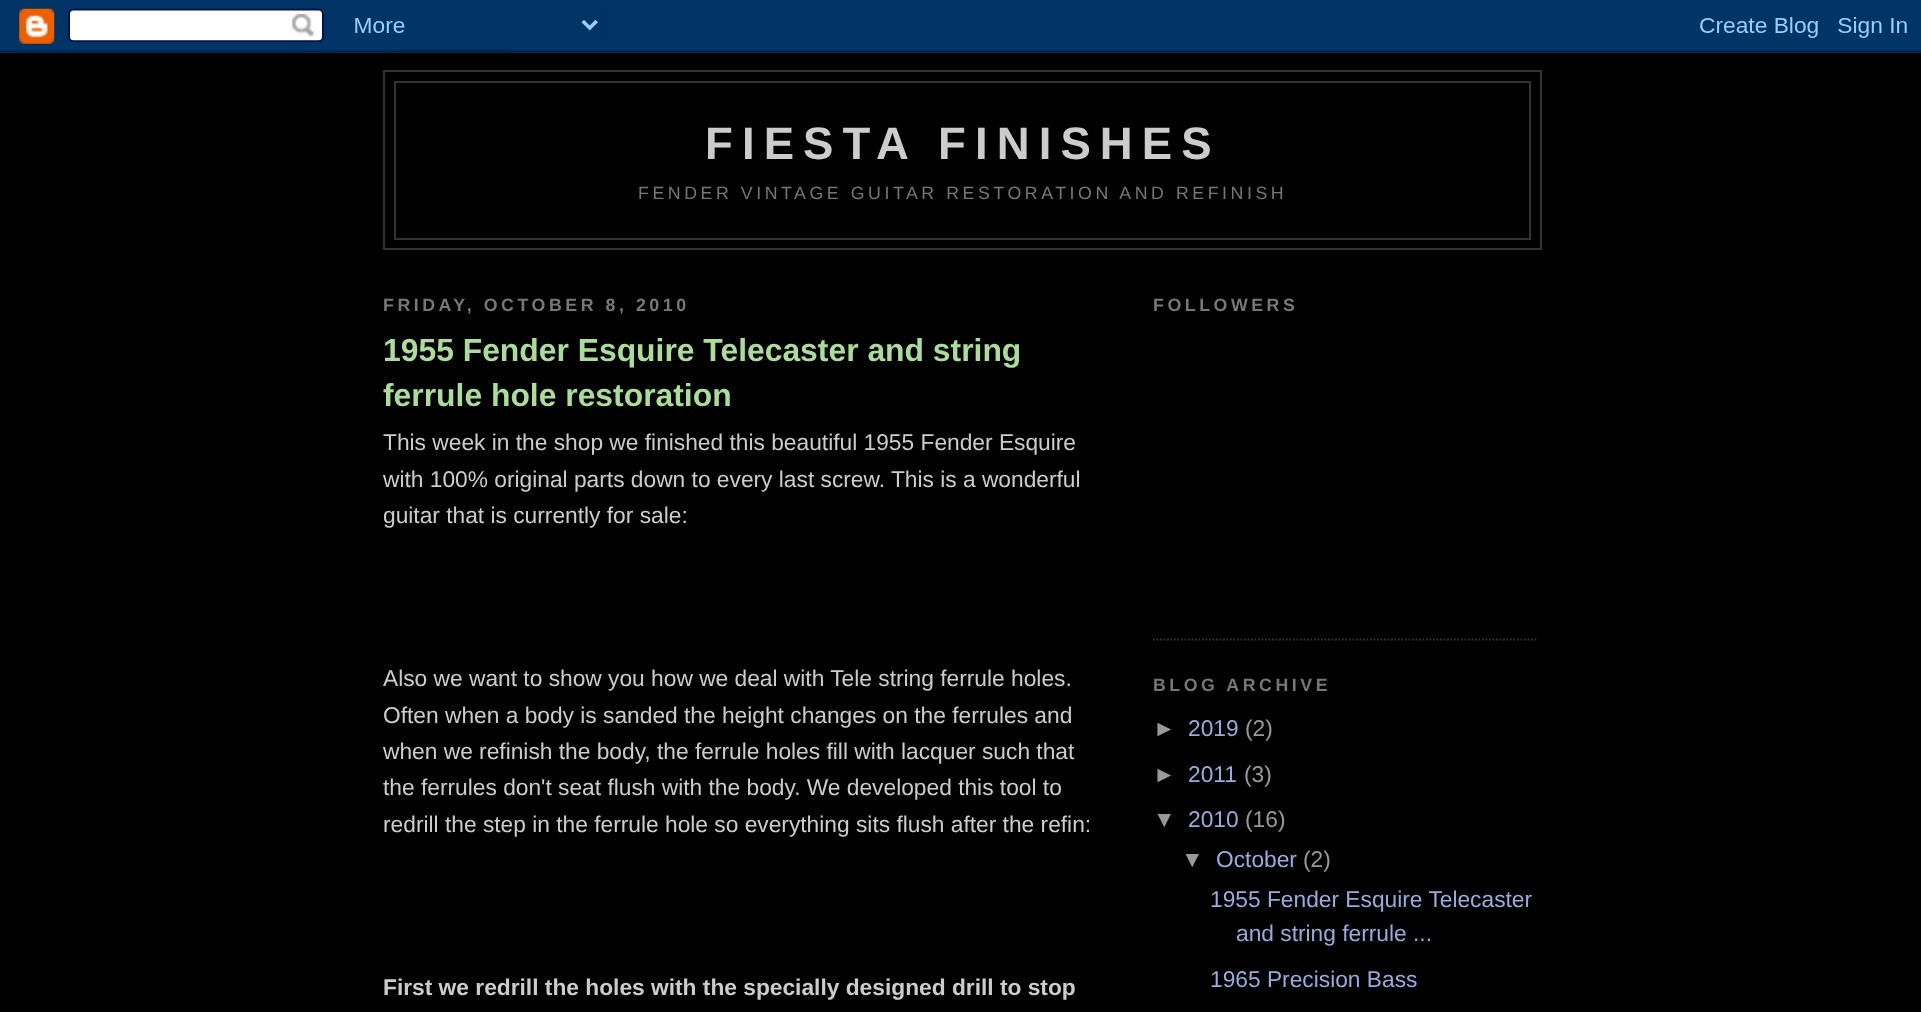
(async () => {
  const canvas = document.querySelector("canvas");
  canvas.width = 1921;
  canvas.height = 1012;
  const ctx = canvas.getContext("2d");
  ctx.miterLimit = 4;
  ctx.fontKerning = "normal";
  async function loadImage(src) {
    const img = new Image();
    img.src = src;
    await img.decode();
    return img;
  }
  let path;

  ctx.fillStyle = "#000000";
  ctx.fillRect(0, 0, 1921, 1012);
  ctx.drawImage(await loadImage("img/1.png"), 0, 0, 1921, 53);
  ctx.strokeStyle = "#333333";
  ctx.lineWidth = 2;
  ctx.strokeRect(384, 71, 1157, 178);
  ctx.strokeRect(395, 82, 1135, 157);
  path = new Path2D("M1153 639.5H1538");
  ctx.lineWidth = 1.8;
  ctx.setLineDash([1.75, 1.75]);
  ctx.stroke(path);
  ctx.letterSpacing = "9.1px";
  ctx.font = "bold 45.5px Liberation Sans";
  ctx.fillStyle = "#cccccc";
  ctx.fillText("FIESTA FINISHES", 705, 159);
  ctx.letterSpacing = "3.55px";
  ctx.font = "17.75px Liberation Sans";
  ctx.fillStyle = "#777777";
  ctx.fillText("FENDER VINTAGE GUITAR RESTORATION AND REFINISH", 638, 199);
  ctx.font = "bold 17.75px Liberation Sans";
  ctx.fillText("FRIDAY, OCTOBER 8, 2010", 383, 311);
  ctx.letterSpacing = "0px";
  ctx.font = "bold 31.85px Liberation Sans";
  ctx.fillStyle = "#aadd99";
  ctx.fillText("1955 Fender Esquire Telecaster and string", 383, 361);
  ctx.fillText("ferrule hole restoration", 383, 406);
  ctx.font = "22.75px Liberation Sans";
  ctx.fillStyle = "#cccccc";
  for (const [text, x, y] of [
    ["This week in the shop we finished this beautiful 1955 Fender Esquire", 383, 450],
    ["with 100% original parts down to every last screw. This is a wonderful", 383, 487],
    ["guitar that is currently for sale:", 383, 523],
    ["Also we want to show you how we deal with Tele string ferrule holes.", 383, 686],
    ["Often when a body is sanded the height changes on the ferrules and", 383, 723],
    ["when we refinish the body, the ferrule holes fill with lacquer such that", 383, 759],
    ["the ferrules don't seat flush with the body. We developed this tool to", 383, 795],
    ["redrill the step in the ferrule hole so everything sits flush after the refin:", 383, 832],
  ]) {
    ctx.fillText(text, x, y);
  }
  ctx.font = "bold 22.75px Liberation Sans";
  ctx.fillText("First we redrill the holes with the specially designed drill to stop", 383, 995);
  ctx.letterSpacing = "3.55px";
  ctx.font = "bold 17.75px Liberation Sans";
  ctx.fillStyle = "#777777";
  ctx.fillText("FOLLOWERS", 1153, 311);
  ctx.fillText("BLOG ARCHIVE", 1153, 691);
  ctx.letterSpacing = "0px";
  ctx.font = "22.75px Liberation Sans";
  ctx.fillStyle = "#999999";
  ctx.fillText("►", 1153, 736);
  ctx.fillStyle = "#99aadd";
  ctx.fillText("2019", 1188, 736);
  ctx.fillStyle = "#999999";
  ctx.fillText("(2)", 1245, 736);
  ctx.fillText("►", 1153, 782);
  ctx.fillStyle = "#99aadd";
  ctx.fillText("2011", 1188, 782);
  ctx.fillStyle = "#999999";
  ctx.fillText("(3)", 1244, 782);
  ctx.fillText("▼", 1153, 827);
  ctx.fillStyle = "#99aadd";
  ctx.fillText("2010", 1188, 827);
  ctx.fillStyle = "#999999";
  ctx.fillText("(16)", 1245, 827);
  ctx.fillText("▼", 1181, 867);
  ctx.fillStyle = "#99aadd";
  ctx.fillText("October", 1216, 867);
  ctx.fillStyle = "#999999";
  ctx.fillText("(2)", 1303, 867);
  ctx.fillStyle = "#99aadd";
  for (const [text, x, y] of [
    ["1955 Fender Esquire Telecaster", 1210, 907],
    ["and string ferrule ...", 1236, 941],
    ["1965 Precision Bass", 1210, 987],
  ]) {
    ctx.fillText(text, x, y);
  }
})();
